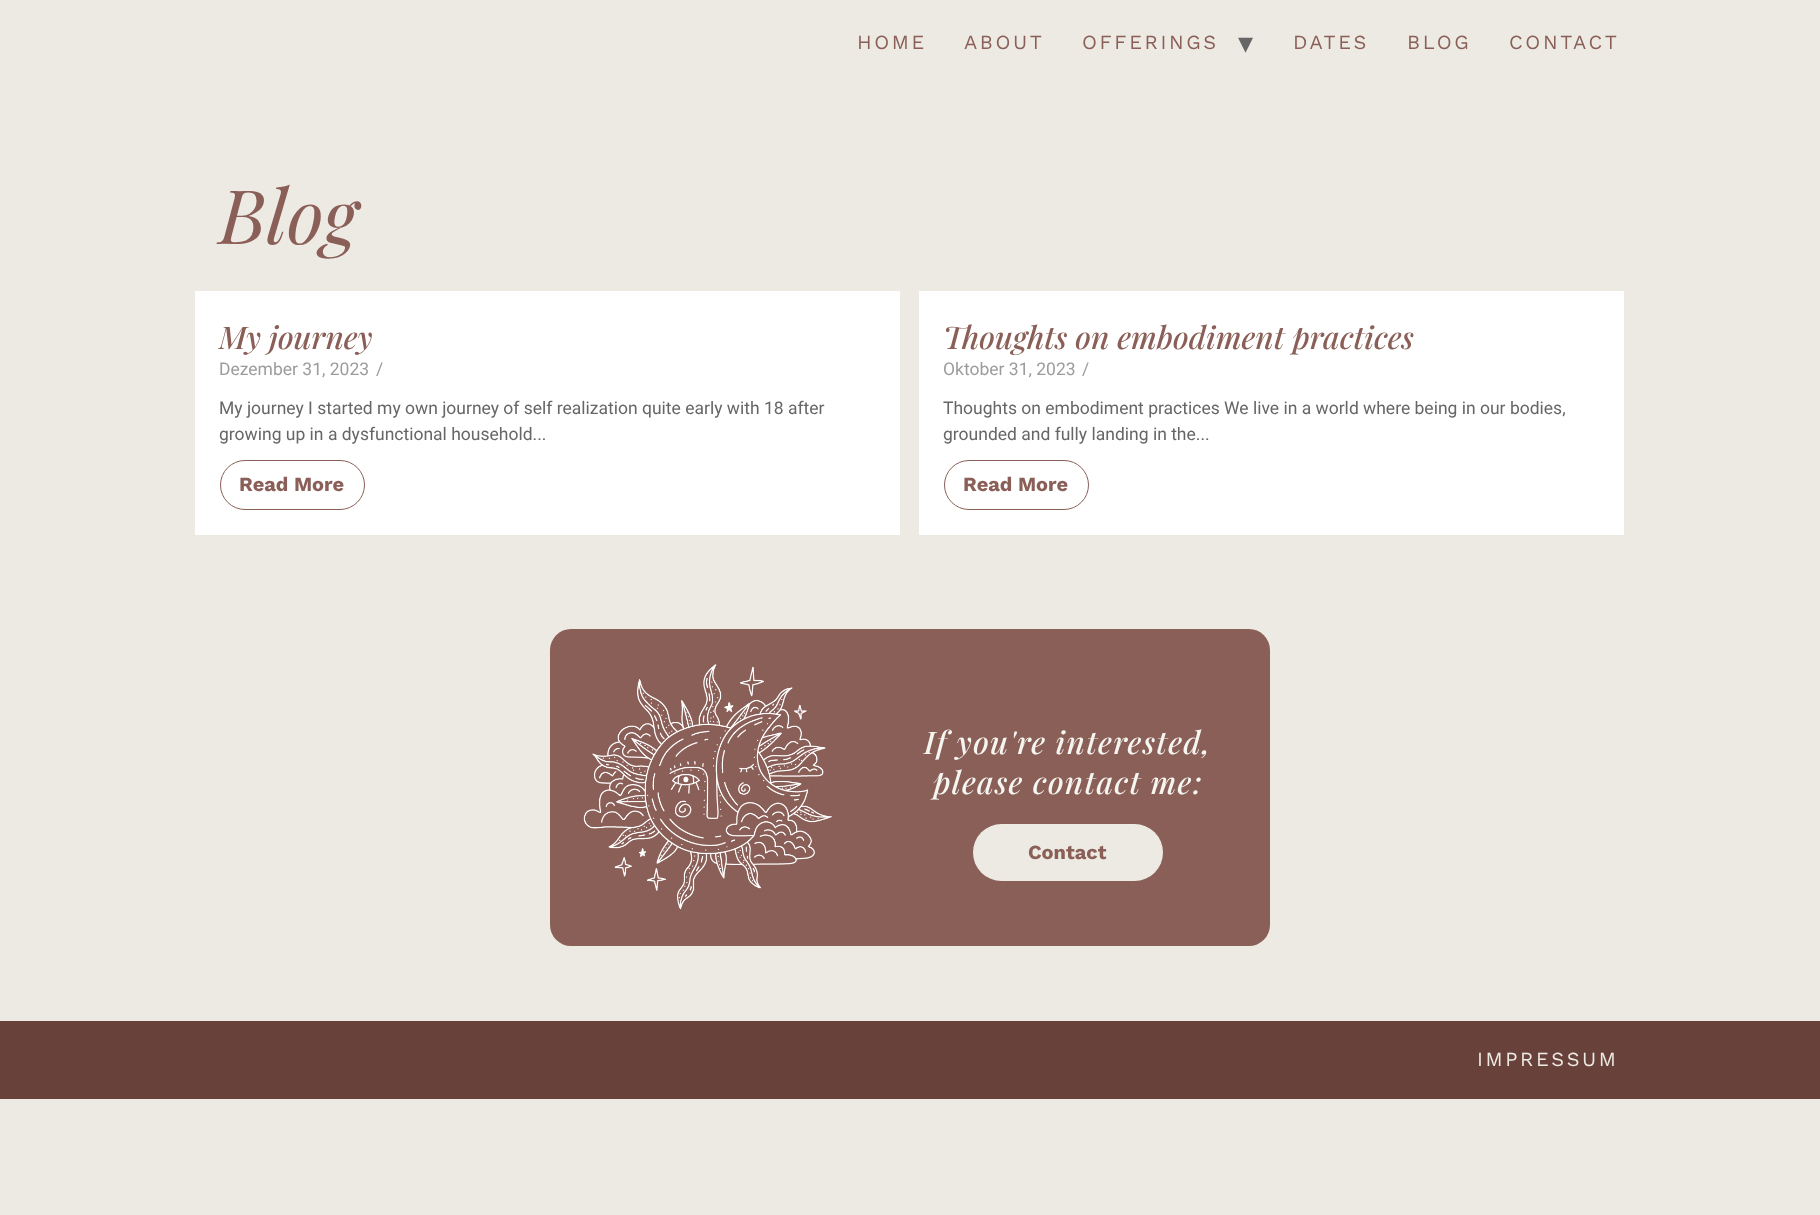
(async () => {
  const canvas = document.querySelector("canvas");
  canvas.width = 1820;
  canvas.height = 1215;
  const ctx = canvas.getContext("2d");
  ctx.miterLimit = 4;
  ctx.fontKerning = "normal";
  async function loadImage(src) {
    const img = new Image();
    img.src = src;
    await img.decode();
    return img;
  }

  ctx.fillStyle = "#edeae3";
  ctx.fillRect(0, 0, 1820, 1215);
  ctx.fillStyle = "#ffffff";
  ctx.fillRect(195, 291, 705, 244);
  ctx.beginPath();
  ctx.roundRect(220.5, 460.5, 144, 49, 24.5);
  ctx.strokeStyle = "#8a5f58";
  ctx.stroke();
  ctx.fillRect(919, 291, 705, 244);
  ctx.beginPath();
  ctx.roundRect(944.5, 460.5, 144, 49, 24.5);
  ctx.stroke();
  ctx.fillStyle = "#8a5f58";
  ctx.beginPath();
  ctx.roundRect(550, 629, 315, 317, [21, 0, 0, 21]);
  ctx.fill();
  ctx.drawImage(await loadImage("img/1.png"), 583, 664, 249, 246);
  ctx.beginPath();
  ctx.roundRect(865, 629, 405, 317, [0, 21, 21, 0]);
  ctx.fill();
  ctx.fillStyle = "#edeae3";
  ctx.beginPath();
  ctx.roundRect(973, 824, 190, 57, 28.5);
  ctx.fill();
  ctx.fillStyle = "#68413b";
  ctx.fillRect(0, 1021, 1820, 78);
  ctx.letterSpacing = "2.6px";
  ctx.font = "20px Work Sans";
  ctx.fillStyle = "#8a5f58";
  for (const [text, x, y] of [
    ["HOME", 857, 49],
    ["ABOUT", 964, 49],
    ["OFFERINGS", 1082, 49],
  ]) {
    ctx.fillText(text, x, y);
  }
  ctx.font = "30px DejaVu Sans";
  ctx.fillStyle = "#666666";
  ctx.fillText("▾", 1238, 53);
  ctx.font = "20px Work Sans";
  ctx.fillStyle = "#8a5f58";
  for (const [text, x, y] of [
    ["DATES", 1293, 49],
    ["BLOG", 1407, 49],
    ["CONTACT", 1509, 49],
  ]) {
    ctx.fillText(text, x, y);
  }
  ctx.letterSpacing = "0px";
  ctx.font = "italic 75px Playfair Display";
  ctx.fillText("Blog", 219, 244);
  ctx.font = "italic 500 31.25px Playfair Display";
  ctx.fillText("My journey", 219, 349);
  ctx.font = "17.5px Roboto";
  ctx.fillStyle = "#9c9c9c";
  ctx.fillText("Dezember 31, 2023", 219, 375);
  ctx.fillText("/", 376, 375);
  ctx.fillStyle = "#666666";
  ctx.fillText("My journey I started my own journey of self realization quite early with 18 after", 219, 414);
  ctx.fillText("growing up in a dysfunctional household...", 219, 440);
  ctx.font = "bold 20px Work Sans";
  ctx.fillStyle = "#8a5f58";
  ctx.fillText("Read More", 239, 491);
  ctx.font = "italic 500 31.25px Playfair Display";
  ctx.fillText("Thoughts on embodiment practices", 943, 349);
  ctx.font = "17.5px Roboto";
  ctx.fillStyle = "#9c9c9c";
  ctx.fillText("Oktober 31, 2023", 943, 375);
  ctx.fillText("/", 1082, 375);
  ctx.fillStyle = "#666666";
  ctx.fillText("Thoughts on embodiment practices We live in a world where being in our bodies,", 943, 414);
  ctx.fillText("grounded and fully landing in the...", 943, 440);
  ctx.font = "bold 20px Work Sans";
  ctx.fillStyle = "#8a5f58";
  ctx.fillText("Read More", 963, 491);
  ctx.letterSpacing = "1.25px";
  ctx.font = "italic 500 31.25px Playfair Display";
  ctx.fillStyle = "#f6f6f1";
  ctx.fillText("If you're interested,", 924, 754);
  ctx.fillText("please contact me:", 933, 794);
  ctx.letterSpacing = "0px";
  ctx.font = "bold 20px Work Sans";
  ctx.fillStyle = "#8a5f58";
  ctx.fillText("Contact", 1028, 859);
  ctx.letterSpacing = "2.6px";
  ctx.font = "20px Work Sans";
  ctx.fillStyle = "#edeae3";
  ctx.fillText("IMPRESSUM", 1477, 1066);
})();
